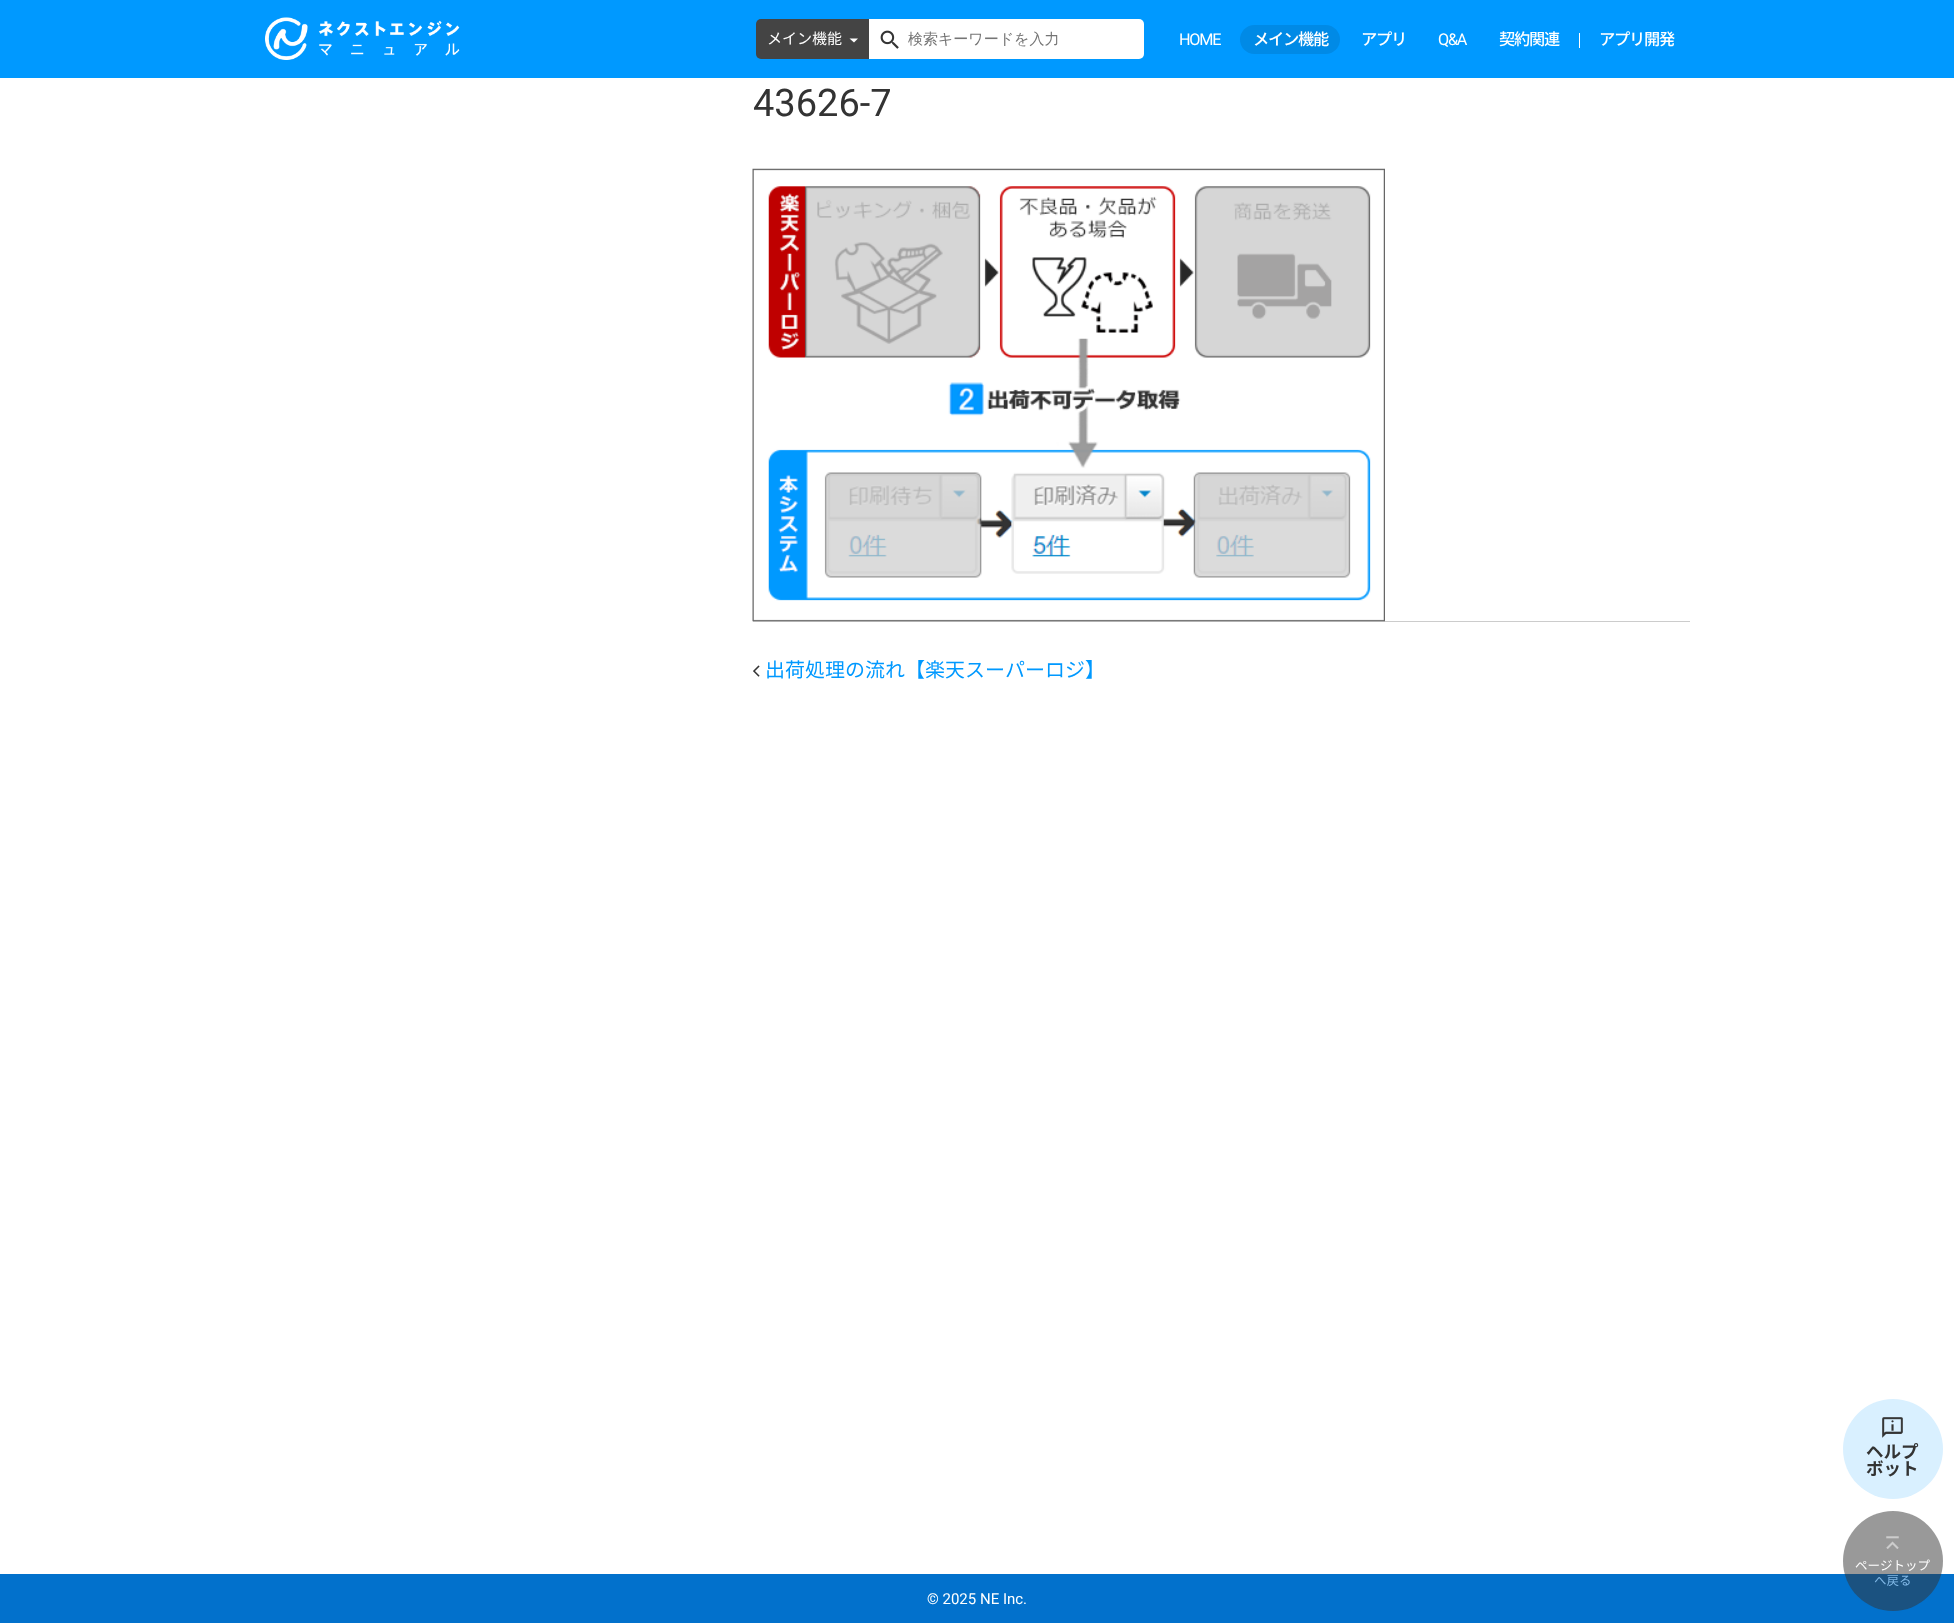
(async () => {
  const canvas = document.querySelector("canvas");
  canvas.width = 1954;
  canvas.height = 1623;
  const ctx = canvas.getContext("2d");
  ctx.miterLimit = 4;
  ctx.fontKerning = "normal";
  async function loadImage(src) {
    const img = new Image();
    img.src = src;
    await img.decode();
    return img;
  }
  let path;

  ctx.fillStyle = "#ffffff";
  ctx.fillRect(0, 0, 1954, 1623);
  ctx.fillStyle = "#0099ff";
  ctx.fillRect(0, 0, 1954, 78);
  ctx.drawImage(await loadImage("img/1.png"), 265, 17, 195, 43);
  ctx.fillStyle = "#444444";
  ctx.beginPath();
  ctx.roundRect(756, 19, 113, 40, [5, 0, 0, 5]);
  ctx.fill();
  ctx.fillStyle = "#ffffff";
  path = new Path2D("M849.5 38.5H858L854 42.5Z");
  ctx.fill(path);
  ctx.beginPath();
  ctx.roundRect(869, 19, 275, 40, [0, 5, 5, 0]);
  ctx.fill();
  ctx.drawImage(await loadImage("img/2.png"), 880, 30, 19, 19);
  ctx.fillStyle = "#008ae6";
  ctx.beginPath();
  ctx.roundRect(1240, 25, 100, 29, 14.5);
  ctx.fill();
  ctx.fillStyle = "#ffffff";
  ctx.fillRect(1579, 33, 1, 15);
  ctx.fillStyle = "#cccccc";
  ctx.fillRect(753, 621, 937, 1);
  ctx.drawImage(await loadImage("img/3.png"), 752, 168, 633, 454);
  ctx.drawImage(await loadImage("img/4.png"), 753, 665, 7, 12);
  ctx.fillStyle = "#0271cc";
  ctx.fillRect(0, 1574, 1954, 49);
  ctx.fillStyle = "#d9f0ff";
  ctx.beginPath();
  ctx.arc(1893, 1449, 50, 0, Math.PI * 2);
  ctx.fill();
  ctx.drawImage(await loadImage("img/5.png"), 1882, 1417, 21, 21);
  ctx.fillStyle = "rgba(51, 51, 51, 0.5)";
  ctx.beginPath();
  ctx.arc(1893, 1561, 50, 0, Math.PI * 2);
  ctx.fill();
  ctx.drawImage(await loadImage("img/6.png"), 1886, 1536, 13, 13);
  ctx.font = "15px Noto Sans JP";
  ctx.fillStyle = "#ffffff";
  ctx.fillText("メイン機能", 767, 44);
  ctx.font = "500 15px WenQuanYi Zen Hei";
  ctx.fillStyle = "#757575";
  ctx.fillText("検索キーワードを入力", 908, 44);
  ctx.letterSpacing = "-1.25px";
  ctx.font = "16.25px Roboto";
  ctx.fillStyle = "#ffffff";
  ctx.fillText("HOME", 1179, 45);
  ctx.font = "500 16.25px Noto Sans JP";
  ctx.fillText("メイン機能", 1253, 45);
  ctx.fillText("アプリ", 1361, 45);
  ctx.font = "16.25px Roboto";
  ctx.fillText("Q&A", 1438, 45);
  ctx.font = "500 16.25px Noto Sans JP";
  ctx.fillText("契約関連", 1499, 45);
  ctx.fillText("アプリ開発", 1599, 45);
  ctx.letterSpacing = "0px";
  ctx.font = "38px Roboto";
  ctx.fillStyle = "#333333";
  ctx.fillText("43626-7", 753, 116);
  ctx.font = "20px Noto Sans JP";
  ctx.fillStyle = "#0099ff";
  ctx.fillText("出荷処理の流れ【楽天スーパーロジ】", 765, 677);
  ctx.font = "15px Roboto";
  ctx.fillStyle = "#ffffff";
  ctx.fillText("©︎ 2025 NE Inc.", 927, 1604);
  ctx.font = "bold 17.5px Noto Sans JP";
  ctx.fillStyle = "#333333";
  ctx.fillText("ヘルプ", 1866, 1458);
  ctx.fillText("ボット", 1866, 1475);
  ctx.font = "12.5px Noto Sans JP";
  ctx.fillStyle = "#ffffff";
  ctx.fillText("ページトップ", 1855, 1570);
  ctx.fillStyle = "#81b8e6";
  ctx.fillText("へ戻る", 1874, 1585);
})();
